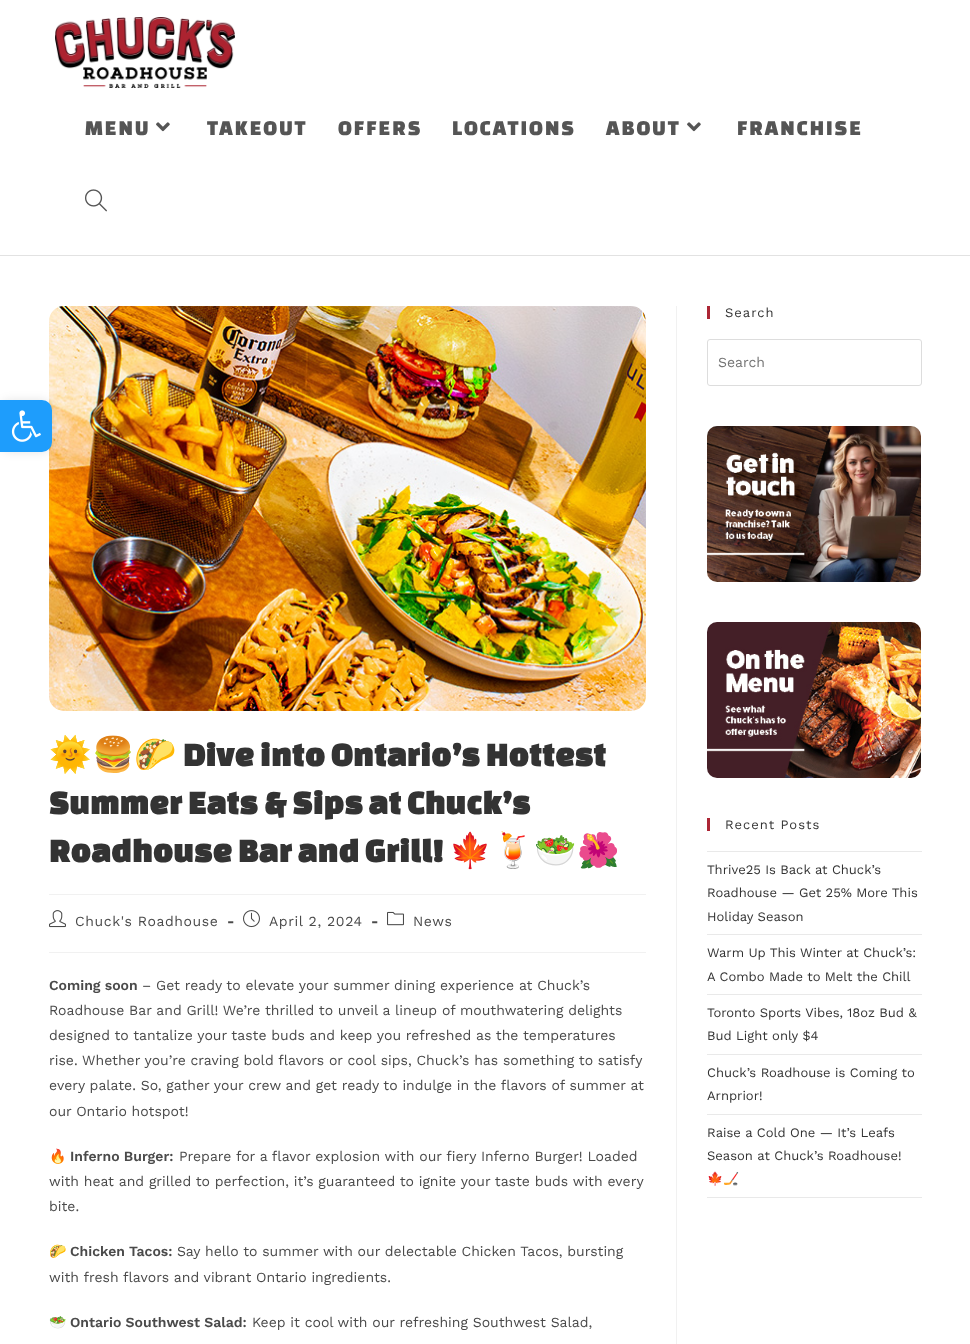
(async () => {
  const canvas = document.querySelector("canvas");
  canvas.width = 970;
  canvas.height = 1344;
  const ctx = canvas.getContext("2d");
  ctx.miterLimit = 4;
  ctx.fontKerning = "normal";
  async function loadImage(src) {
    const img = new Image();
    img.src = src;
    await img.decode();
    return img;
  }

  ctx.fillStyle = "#ffffff";
  ctx.fillRect(0, 0, 970, 1344);
  ctx.drawImage(await loadImage("img/5.png"), 49, 306, 597, 405);
  ctx.fillStyle = "rgba(0, 0, 0, 0.1)";
  ctx.filter = "blur(5px)";
  ctx.beginPath();
  ctx.roundRect(0, 400, 52, 52, 10);
  ctx.fill();
  ctx.filter = "none";
  ctx.fillStyle = "#1e9dfc";
  ctx.beginPath();
  ctx.roundRect(0, 400, 52, 52, [0, 10, 10, 0]);
  ctx.fill();
  ctx.drawImage(await loadImage("img/1.png"), 11, 410, 30, 32);
  ctx.fillStyle = "#e2e2e2";
  ctx.fillRect(0, 255, 970, 1);
  ctx.drawImage(await loadImage("img/2.png"), 55, 17, 180, 71);
  ctx.drawImage(await loadImage("img/3.png"), 156, 122, 14, 10);
  ctx.drawImage(await loadImage("img/3.png"), 687, 122, 14, 10);
  ctx.drawImage(await loadImage("img/4.png"), 85, 189, 22, 23);
  for (const [x, y, w, h, color] of [
    [676, 306, 1, 1038, "#f1f1f1"],
    [49, 894, 597, 1, "#f1f1f1"],
    [49, 952, 597, 1, "#f1f1f1"],
  ]) {
    ctx.fillStyle = color;
    ctx.fillRect(x, y, w, h);
  }
  ctx.drawImage(await loadImage("img/6.png"), 49, 910, 17, 18);
  ctx.drawImage(await loadImage("img/7.png"), 243, 910, 17, 18);
  ctx.drawImage(await loadImage("img/8.png"), 387, 911, 17, 15);
  ctx.fillStyle = "#ac2635";
  ctx.fillRect(707, 306, 3, 13);
  ctx.beginPath();
  ctx.roundRect(707.5, 339.5, 214, 46, 2.5);
  ctx.strokeStyle = "#dddddd";
  ctx.stroke();
  ctx.drawImage(await loadImage("img/9.png"), 707, 426, 214, 156);
  ctx.drawImage(await loadImage("img/10.png"), 707, 622, 214, 156);
  for (const [x, y, w, h, color] of [
    [707, 818, 3, 13, "#ac2635"],
    [707, 851, 215, 1, "#e9e9e9"],
    [707, 934, 215, 1, "#e9e9e9"],
    [707, 994, 215, 1, "#e9e9e9"],
    [707, 1054, 215, 1, "#e9e9e9"],
    [707, 1114, 215, 1, "#e9e9e9"],
    [707, 1197, 215, 1, "#e9e9e9"],
  ]) {
    ctx.fillStyle = color;
    ctx.fillRect(x, y, w, h);
  }
  ctx.letterSpacing = "2px";
  ctx.font = "22px Changa One";
  ctx.fillStyle = "#555555";
  for (const [text, x, y] of [
    ["MENU", 85, 135],
    ["TAKEOUT", 207, 135],
    ["OFFERS", 338, 135],
    ["LOCATIONS", 452, 135],
    ["ABOUT", 606, 135],
    ["FRANCHISE", 737, 135],
  ]) {
    ctx.fillText(text, x, y);
  }
  ctx.letterSpacing = "0.6px";
  ctx.font = "bold 34px Noto Color Emoji";
  ctx.fillStyle = "#333333";
  ctx.fillText("🌞🍔🌮", 49, 766);
  ctx.font = "bold 34px Changa One";
  for (const [text, x, y] of [
    ["Dive into Ontario’s Hottest", 183, 766],
    ["Summer Eats & Sips at Chuck’s", 49, 814],
    ["Roadhouse Bar and Grill!", 49, 862],
  ]) {
    ctx.fillText(text, x, y);
  }
  ctx.font = "bold 34px Noto Color Emoji";
  ctx.fillText("🍁🍹🥗🌺", 449, 862);
  ctx.font = "14px Work Sans";
  ctx.fillStyle = "#4a4a4a";
  ctx.fillText("Chuck's Roadhouse", 75, 926);
  ctx.font = "bold 14px Work Sans";
  ctx.fillText("-", 227, 926);
  ctx.font = "14px Work Sans";
  ctx.fillText("April 2, 2024", 269, 926);
  ctx.font = "bold 14px Work Sans";
  ctx.fillText("-", 371, 926);
  ctx.font = "14px Work Sans";
  ctx.fillText("News", 413, 926);
  ctx.letterSpacing = "0px";
  ctx.font = "600 14px Work Sans";
  ctx.fillText("Coming soon", 49, 990);
  ctx.font = "14px Work Sans";
  for (const [text, x, y] of [
    ["– Get ready to elevate your summer dining experience at Chuck’s", 142, 990],
    ["Roadhouse Bar and Grill! We’re thrilled to unveil a lineup of mouthwatering delights", 49, 1015],
    ["designed to tantalize your taste buds and keep you refreshed as the temperatures", 49, 1040],
    ["rise. Whether you’re craving bold flavors or cool sips, Chuck’s has something to satisfy", 49, 1065],
    ["every palate. So, gather your crew and get ready to indulge in the flavors of summer at", 49, 1090],
    ["our Ontario hotspot!", 49, 1116],
  ]) {
    ctx.fillText(text, x, y);
  }
  ctx.font = "bold 14px Noto Color Emoji";
  ctx.fillText("🔥", 49, 1161);
  ctx.font = "600 14px Work Sans";
  ctx.fillText("Inferno Burger:", 70, 1161);
  ctx.font = "14px Work Sans";
  for (const [text, x, y] of [
    ["Prepare for a flavor explosion with our fiery Inferno Burger! Loaded", 179, 1161],
    ["with heat and grilled to perfection, it’s guaranteed to ignite your taste buds with every", 49, 1186],
    ["bite.", 49, 1211],
  ]) {
    ctx.fillText(text, x, y);
  }
  ctx.font = "bold 14px Noto Color Emoji";
  ctx.fillText("🌮", 49, 1256);
  ctx.font = "600 14px Work Sans";
  ctx.fillText("Chicken Tacos:", 70, 1256);
  ctx.font = "14px Work Sans";
  ctx.fillText("Say hello to summer with our delectable Chicken Tacos, bursting", 177, 1256);
  ctx.fillText("with fresh flavors and vibrant Ontario ingredients.", 49, 1282);
  ctx.font = "bold 14px Noto Color Emoji";
  ctx.fillText("🥗", 49, 1327);
  ctx.font = "600 14px Work Sans";
  ctx.fillText("Ontario Southwest Salad:", 70, 1327);
  ctx.font = "14px Work Sans";
  ctx.fillText("Keep it cool with our refreshing Southwest Salad,", 252, 1327);
  ctx.letterSpacing = "1px";
  ctx.font = "13px Work Sans";
  ctx.fillStyle = "#333333";
  ctx.fillText("Search", 725, 317);
  ctx.letterSpacing = "0px";
  ctx.font = "14px Work Sans";
  ctx.fillStyle = "#757575";
  ctx.fillText("Search", 718, 367);
  ctx.letterSpacing = "1px";
  ctx.font = "13px Work Sans";
  ctx.fillStyle = "#333333";
  ctx.fillText("Recent Posts", 725, 829);
  ctx.letterSpacing = "0px";
  for (const [text, x, y] of [
    ["Thrive25 Is Back at Chuck’s", 707, 874],
    ["Roadhouse — Get 25% More This", 707, 897],
    ["Holiday Season", 707, 921],
    ["Warm Up This Winter at Chuck’s:", 707, 957],
    ["A Combo Made to Melt the Chill", 707, 981],
    ["Toronto Sports Vibes, 18oz Bud &", 707, 1017],
    ["Bud Light only $4", 707, 1040],
    ["Chuck’s Roadhouse is Coming to", 707, 1077],
    ["Arnprior!", 707, 1100],
    ["Raise a Cold One — It’s Leafs", 707, 1137],
    ["Season at Chuck’s Roadhouse!", 707, 1160],
  ]) {
    ctx.fillText(text, x, y);
  }
  ctx.font = "13px Noto Color Emoji";
  ctx.fillText("🍁🏒", 707, 1183);
})();
